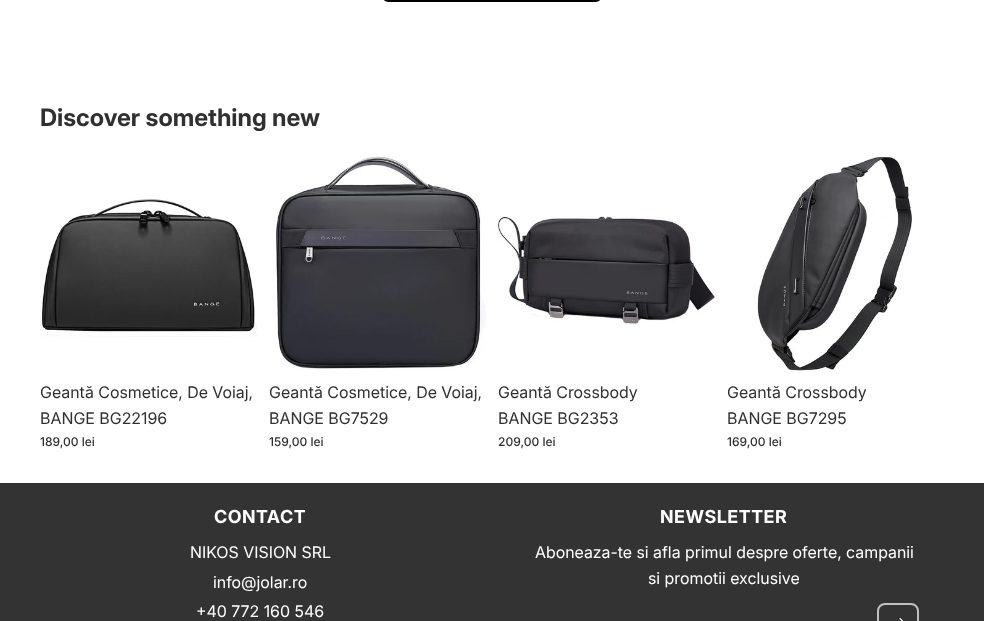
(async () => {
  const canvas = document.querySelector("canvas");
  canvas.width = 984;
  canvas.height = 621;
  const ctx = canvas.getContext("2d");
  ctx.miterLimit = 4;
  ctx.fontKerning = "normal";
  async function loadImage(src) {
    const img = new Image();
    img.src = src;
    await img.decode();
    return img;
  }

  ctx.fillStyle = "#ffffff";
  ctx.fillRect(0, 0, 984, 621);
  ctx.fillStyle = "#000000";
  ctx.beginPath();
  ctx.roundRect(383, -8, 218, 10, 8);
  ctx.fill();
  ctx.drawImage(await loadImage("img/1.png"), 40, 199, 217, 138);
  ctx.drawImage(await loadImage("img/2.png"), 276, 156, 210, 214);
  ctx.drawImage(await loadImage("img/3.png"), 498, 216, 217, 109);
  ctx.drawImage(await loadImage("img/4.png"), 757, 156, 155, 216);
  ctx.fillStyle = "#333333";
  ctx.fillRect(0, 483, 984, 138);
  ctx.beginPath();
  ctx.roundRect(878, 604, 40, 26, 7);
  ctx.strokeStyle = "#c0c0c0";
  ctx.lineWidth = 2;
  ctx.stroke();
  ctx.drawImage(await loadImage("img/5.png"), 899, 618, 5, 3);
  ctx.font = "bold 24px Inter";
  ctx.fillStyle = "#303030";
  ctx.fillText("Discover something new", 40, 126);
  ctx.font = "16px Inter";
  ctx.fillText("Geantă Cosmetice, De Voiaj,", 40, 398);
  ctx.fillText("BANGE BG22196", 40, 424);
  ctx.font = "500 12px Inter";
  ctx.fillText("189,00 lei", 40, 446);
  ctx.font = "16px Inter";
  ctx.fillText("Geantă Cosmetice, De Voiaj,", 269, 398);
  ctx.fillText("BANGE BG7529", 269, 424);
  ctx.font = "500 12px Inter";
  ctx.fillText("159,00 lei", 269, 446);
  ctx.font = "16px Inter";
  ctx.fillText("Geantă Crossbody", 498, 398);
  ctx.fillText("BANGE BG2353", 498, 424);
  ctx.font = "500 12px Inter";
  ctx.fillText("209,00 lei", 498, 446);
  ctx.font = "16px Inter";
  ctx.fillText("Geantă Crossbody", 727, 398);
  ctx.fillText("BANGE BG7295", 727, 424);
  ctx.font = "500 12px Inter";
  ctx.fillText("169,00 lei", 727, 446);
  ctx.letterSpacing = "0.5px";
  ctx.font = "bold 18px 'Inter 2'";
  ctx.fillStyle = "#ffffff";
  ctx.fillText("CONTACT", 214, 523);
  ctx.letterSpacing = "0px";
  ctx.font = "16px Inter";
  for (const [text, x, y] of [
    ["NIKOS VISION SRL", 190, 558],
    ["info@jolar.ro", 213, 588],
    ["+40 772 160 546", 196, 617],
  ]) {
    ctx.fillText(text, x, y);
  }
  ctx.letterSpacing = "0.5px";
  ctx.font = "bold 18px 'Inter 2'";
  ctx.fillText("NEWSLETTER", 660, 523);
  ctx.letterSpacing = "0px";
  ctx.font = "16px Inter";
  ctx.fillText("Aboneaza-te si afla primul despre oferte, campanii", 535, 558);
  ctx.fillText("si promotii exclusive", 648, 584);
})();
